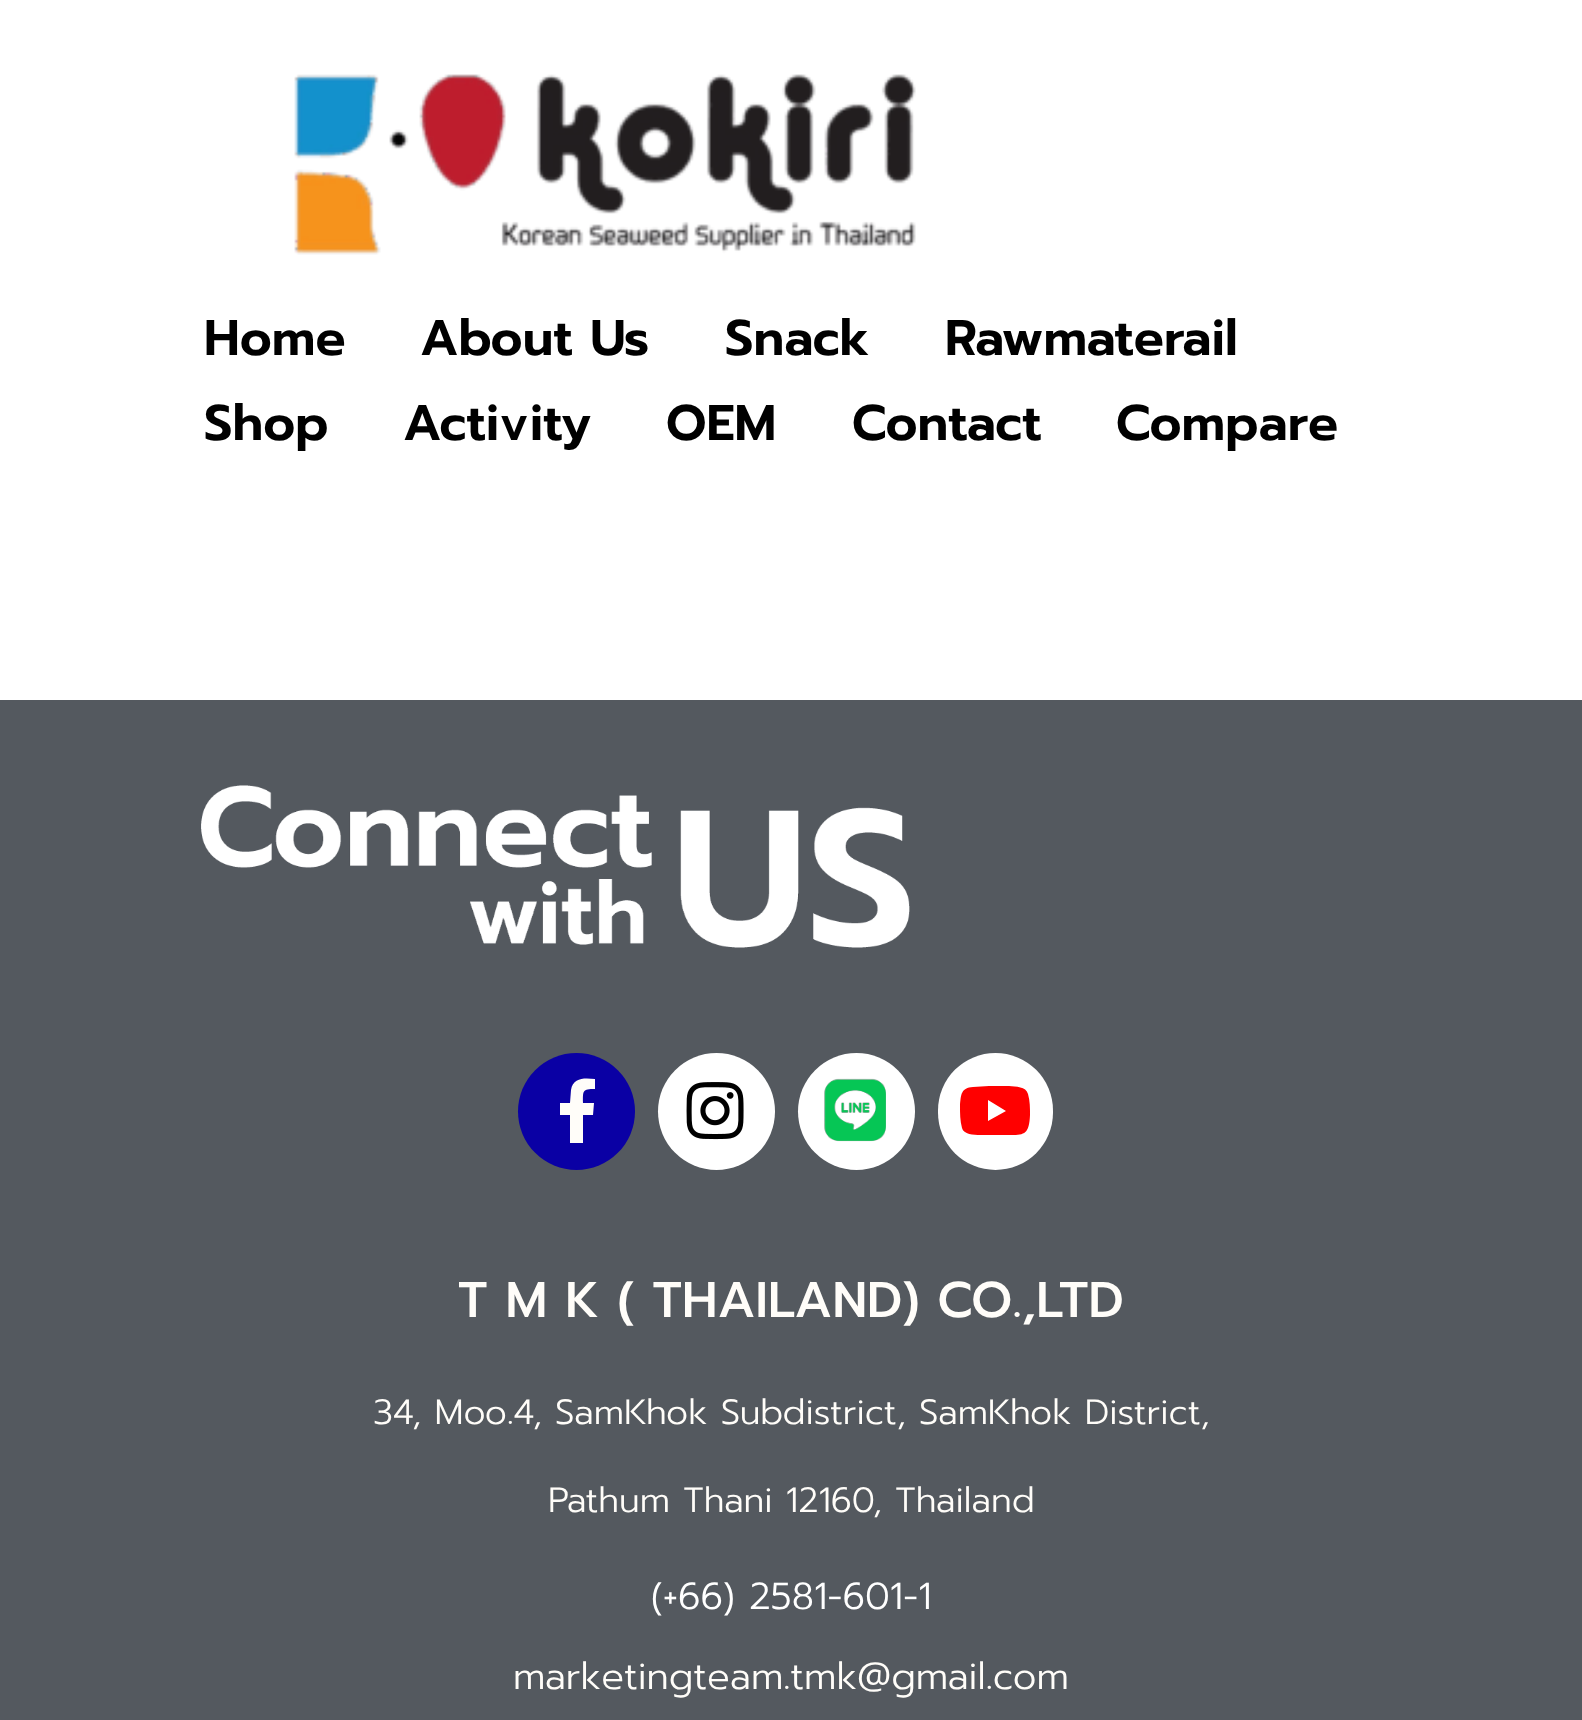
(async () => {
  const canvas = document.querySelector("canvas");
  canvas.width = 1582;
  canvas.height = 1720;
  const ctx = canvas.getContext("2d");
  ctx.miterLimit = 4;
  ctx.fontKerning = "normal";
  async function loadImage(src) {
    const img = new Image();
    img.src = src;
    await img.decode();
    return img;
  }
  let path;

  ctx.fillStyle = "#ffffff";
  ctx.fillRect(0, 0, 1582, 1720);
  ctx.drawImage(await loadImage("img/1.png"), 294, 74, 622, 181);
  ctx.fillStyle = "#54595f";
  ctx.fillRect(0, 700, 1582, 1020);
  ctx.drawImage(await loadImage("img/2.png"), 201, 785, 709, 163);
  ctx.fillStyle = "#0a00a4";
  ctx.beginPath();
  ctx.arc(576.5, 1111.5, 58.5, 0, Math.PI * 2);
  ctx.fill();
  ctx.fillStyle = "#fffdf9";
  path = new Path2D("M593 1115H583V1143H570V1115H560V1103H570L571 1090C573 1077 585 1078 595 1079V1089C582 1089 583 1091 583 1103H594Z");
  ctx.fill(path);
  ctx.fillStyle = "#ffffff";
  ctx.beginPath();
  ctx.arc(716.5, 1111.5, 58.5, 0, Math.PI * 2);
  ctx.fill();
  ctx.drawImage(await loadImage("img/3.png"), 686, 1082, 58, 58);
  ctx.beginPath();
  ctx.arc(856.5, 1111.5, 58.5, 0, Math.PI * 2);
  ctx.fill();
  ctx.drawImage(await loadImage("img/4.png"), 824, 1078, 62, 64);
  ctx.beginPath();
  ctx.roundRect(938, 1053, 115, 117, 57.5);
  ctx.fill();
  ctx.fillStyle = "#ff0000";
  path = new Path2D("M1028 1094C1030 1101 1030 1108 1030 1115C1029 1137 1023 1135 1003 1135H985C979 1135 964 1136 962 1128C960 1121 960 1113 960 1106C961 1094 961 1088 973 1087L989 1086H1009C1016 1087 1026 1086 1028 1094ZM988 1121L1006 1111L988 1100Z");
  ctx.fill(path);
  ctx.font = "600 50px Prompt";
  ctx.fillStyle = "#000000";
  for (const [text, x, y] of [
    ["Home", 204, 355],
    ["About Us", 420, 355],
    ["Snack", 725, 355],
    ["Rawmaterail", 945, 355],
    ["Shop", 204, 440],
    ["Activity", 403, 440],
    ["OEM", 666, 440],
    ["Contact", 852, 440],
    ["Compare", 1116, 440],
  ]) {
    ctx.fillText(text, x, y);
  }
  ctx.font = "500 50px Prompt";
  ctx.fillStyle = "#fffdf9";
  ctx.fillText("T M K ( THAILAND) CO.,LTD", 458, 1317);
  ctx.font = "300 35px Prompt";
  ctx.fillText("34, Moo.4, SamKhok Subdistrict, SamKhok District,", 373, 1424);
  ctx.fillText("Pathum Thani 12160, Thailand", 548, 1512);
  ctx.font = "300 37.5px Prompt";
  ctx.fillStyle = "#ffffff";
  ctx.fillText("(+66) 2581-601-1", 651, 1609);
  ctx.fillStyle = "#fffdf9";
  ctx.fillText("marketingteam.tmk@gmail.com", 513, 1689);
})();
